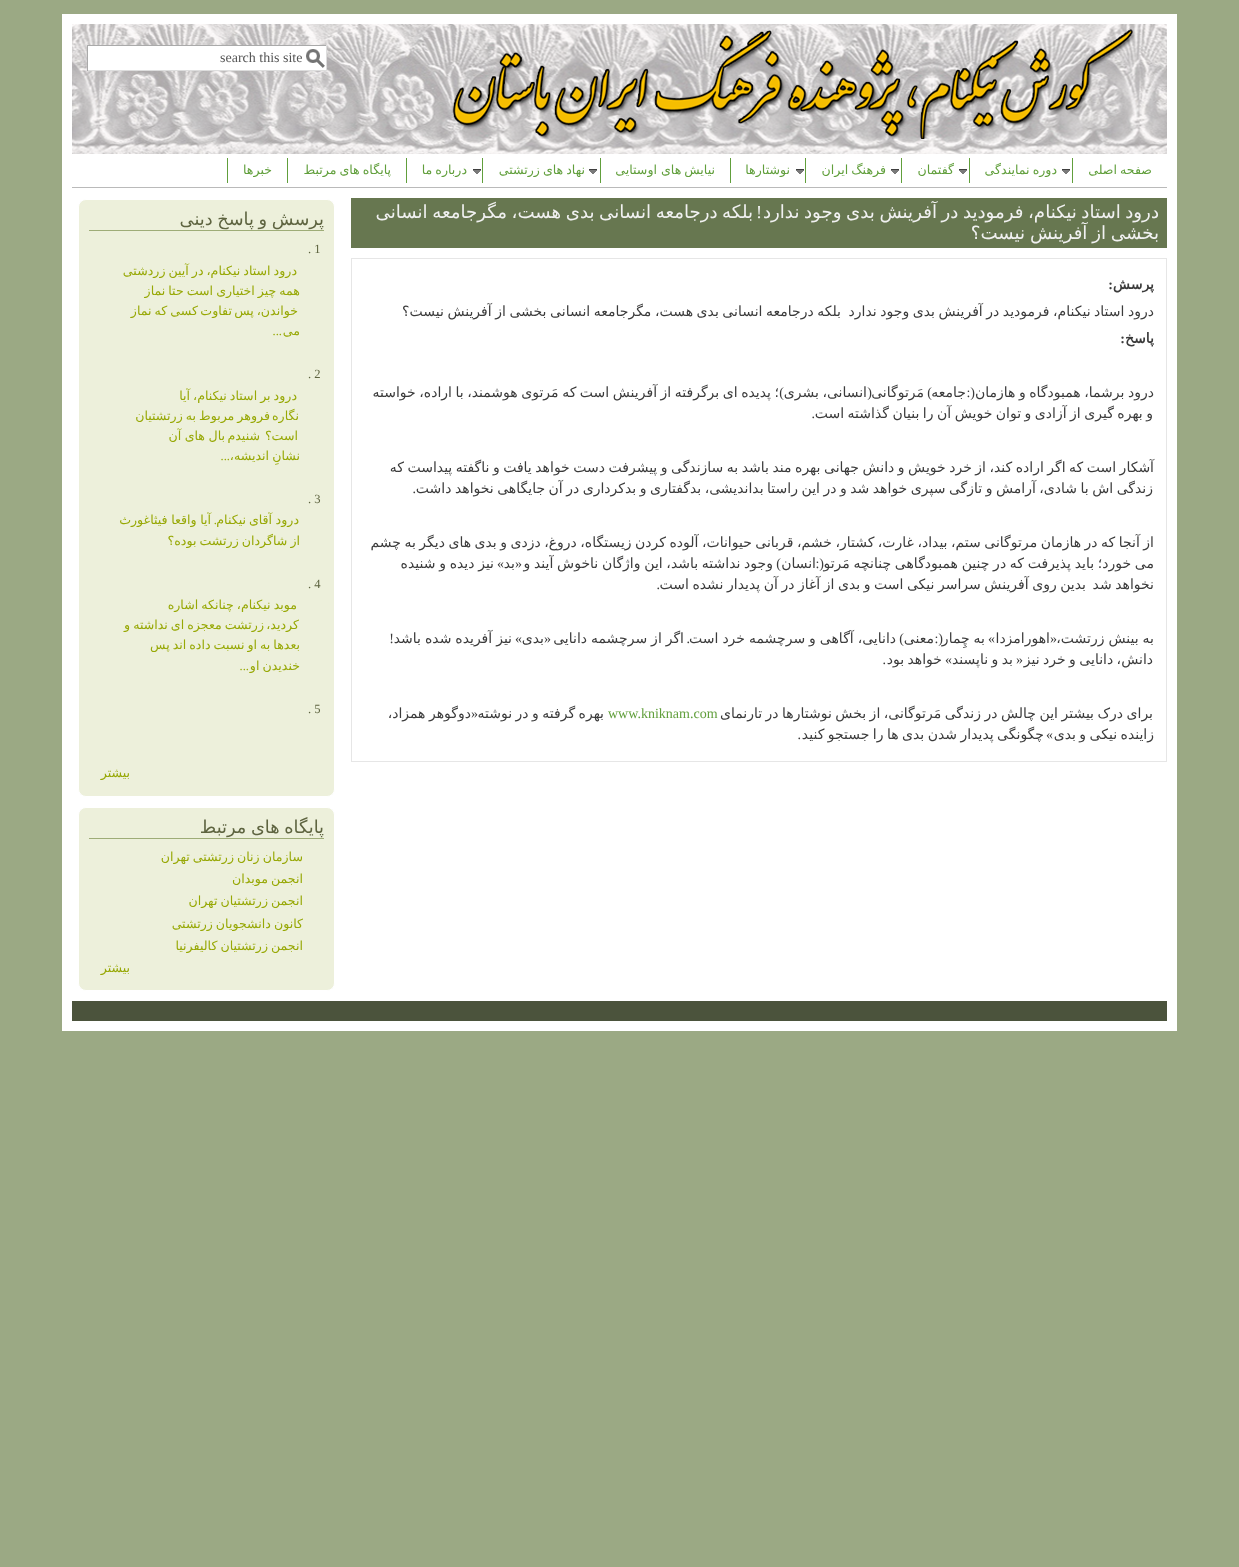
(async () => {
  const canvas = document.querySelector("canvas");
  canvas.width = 1239;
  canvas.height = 1567;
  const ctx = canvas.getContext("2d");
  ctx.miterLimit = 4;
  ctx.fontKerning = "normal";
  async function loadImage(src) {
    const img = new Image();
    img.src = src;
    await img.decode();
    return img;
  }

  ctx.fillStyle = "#9ba984";
  ctx.fillRect(0, 0, 1239, 1567);
  ctx.fillStyle = "#ffffff";
  ctx.fillRect(62, 14, 1115, 1017);
  ctx.drawImage(await loadImage("img/1.png"), 72, 24, 1095, 130);
  ctx.drawImage(await loadImage("img/2.png"), 452, 29, 684, 110);
  ctx.fillRect(88, 46, 238, 24);
  ctx.drawImage(await loadImage("img/3.png"), 306, 49, 19, 19);
  for (const [x, y, w, h, color] of [
    [87, 45, 240, 1, "#aaaaaa"],
    [326, 45, 1, 26, "#dddddd"],
    [87, 70, 240, 1, "#dddddd"],
    [87, 45, 1, 26, "#aaaaaa"],
    [72, 187, 1095, 1, "#bababa"],
    [1072, 158, 1, 25, "#619f3c"],
  ]) {
    ctx.fillStyle = color;
    ctx.fillRect(x, y, w, h);
  }
  ctx.drawImage(await loadImage("img/4.png"), 1062, 169, 8, 5);
  ctx.fillRect(969, 158, 1, 25);
  ctx.drawImage(await loadImage("img/4.png"), 959, 169, 8, 5);
  ctx.fillRect(901, 158, 1, 25);
  ctx.drawImage(await loadImage("img/4.png"), 891, 169, 8, 5);
  ctx.fillRect(805, 158, 1, 25);
  ctx.drawImage(await loadImage("img/4.png"), 796, 169, 8, 5);
  ctx.fillRect(730, 158, 1, 25);
  ctx.fillRect(600, 158, 1, 25);
  ctx.drawImage(await loadImage("img/4.png"), 589, 169, 8, 5);
  ctx.fillRect(482, 158, 1, 25);
  ctx.drawImage(await loadImage("img/4.png"), 473, 169, 8, 5);
  for (const [x, y, w, h, color] of [
    [406, 158, 1, 25, "#619f3c"],
    [287, 158, 1, 25, "#619f3c"],
    [227, 158, 1, 25, "#619f3c"],
    [351, 198, 816, 50, "#677750"],
  ]) {
    ctx.fillStyle = color;
    ctx.fillRect(x, y, w, h);
  }
  ctx.strokeStyle = "#e6e6e6";
  ctx.strokeRect(351.5, 258.5, 815, 503);
  ctx.fillStyle = "#edf0db";
  ctx.beginPath();
  ctx.roundRect(78.5, 199.5, 256, 597, 7.5);
  ctx.fill();
  ctx.strokeStyle = "#ffffff";
  ctx.stroke();
  ctx.fillStyle = "#9eac77";
  ctx.fillRect(89, 230, 235, 1);
  ctx.fillStyle = "#edf0db";
  ctx.beginPath();
  ctx.roundRect(78.5, 807.5, 256, 183, 7.5);
  ctx.fill();
  ctx.stroke();
  ctx.fillStyle = "#9eac77";
  ctx.fillRect(89, 838, 235, 1);
  ctx.fillStyle = "#4b533c";
  ctx.fillRect(72, 1001, 1095, 20);
  ctx.font = "14px Liberation Serif";
  ctx.fillStyle = "#555555";
  ctx.fillText("search this site", 220, 62);
  ctx.wordSpacing = "-1px";
  ctx.direction = "rtl";
  ctx.font = "12.6px DejaVu Sans";
  ctx.fillStyle = "#619f3c";
  ctx.fillText("صفحه اصلی", 1152, 174);
  ctx.fillText("دوره نمایندگی", 1057, 174);
  ctx.wordSpacing = "0px";
  ctx.fillText("گفتمان", 954, 174);
  ctx.wordSpacing = "-1px";
  ctx.fillText("فرهنگ ایران", 886, 174);
  ctx.wordSpacing = "0px";
  ctx.fillText("نوشتارها", 790, 174);
  ctx.wordSpacing = "-1px";
  ctx.fillText("نیایش های", 715, 174);
  ctx.wordSpacing = "0px";
  ctx.fillText("اوستایی", 657, 174);
  ctx.wordSpacing = "-1px";
  for (const [text, x, y] of [
    ["نهاد های زرتشتی", 585, 174],
    ["درباره ما", 467, 174],
    ["پایگاه های مرتبط", 391, 174],
  ]) {
    ctx.fillText(text, x, y);
  }
  ctx.wordSpacing = "0px";
  ctx.fillText("خبرها", 272, 174);
  ctx.wordSpacing = "-1.25px";
  ctx.font = "18.2px DejaVu Sans";
  ctx.fillStyle = "#f1f1f1";
  ctx.fillText("درود استاد نیکنام، فرمودید در آفرینش بدی وجود ندارد", 1159, 218);
  ctx.fillText("بلکه درجامعه انسانی بدی هست، مگرجامعه انسانی", 753, 218);
  ctx.wordSpacing = "0px";
  ctx.font = "18.2px Liberation Serif";
  ctx.fillText("!", 762, 218);
  ctx.wordSpacing = "-1px";
  ctx.font = "18.2px DejaVu Sans";
  ctx.fillText("بخشی از آفرینش نیست؟", 1159, 239);
  ctx.wordSpacing = "0px";
  ctx.font = "bold 14px DejaVu Sans";
  ctx.fillStyle = "#3b3b3b";
  ctx.fillText("پرسش", 1154, 289);
  ctx.font = "bold 14px Liberation Serif";
  ctx.fillText(":", 1113, 289);
  ctx.wordSpacing = "-0.9px";
  ctx.font = "14px DejaVu Sans";
  ctx.fillText("درود استاد نیکنام، فرمودید در آفرینش بدی وجود ندارد", 1154, 316);
  ctx.fillText("بلکه درجامعه انسانی بدی هست، مگرجامعه انسانی بخشی از آفرینش نیست؟", 841, 316);
  ctx.wordSpacing = "0px";
  ctx.font = "bold 14px DejaVu Sans";
  ctx.fillText("پاسخ", 1154, 343);
  ctx.font = "bold 14px Liberation Serif";
  ctx.fillText(":", 1125, 343);
  ctx.wordSpacing = "-0.9px";
  ctx.font = "14px DejaVu Sans";
  ctx.fillText("درود برشما، همبودگاه و هازمان", 1154, 397);
  ctx.wordSpacing = "0px";
  ctx.font = "14px Liberation Serif";
  ctx.fillText("(:", 975, 397);
  ctx.font = "14px DejaVu Sans";
  ctx.fillText("جامعه", 966, 397);
  ctx.font = "14px Liberation Serif";
  ctx.fillText(")", 932, 397);
  ctx.font = "14px DejaVu Sans";
  ctx.fillText("مَرتوگانی", 924, 397);
  ctx.font = "14px Liberation Serif";
  ctx.fillText("(", 872, 397);
  ctx.wordSpacing = "-0.9px";
  ctx.font = "14px DejaVu Sans";
  ctx.fillText("انسانی، بشری", 867, 397);
  ctx.fillText("؛ پدیده ای برگرفته از آفرینش است که مَرتوی هوشمند، با اراده، خواسته", 779, 397);
  ctx.wordSpacing = "0px";
  ctx.font = "14px Liberation Serif";
  ctx.fillText(")", 784, 397);
  ctx.wordSpacing = "-0.95px";
  ctx.font = "14px DejaVu Sans";
  ctx.fillText("و بهره گیری از آزادی و توان خویش آن را بنیان گذاشته است", 1153, 418);
  ctx.wordSpacing = "0px";
  ctx.font = "14px Liberation Serif";
  ctx.fillText(".", 815, 418);
  ctx.wordSpacing = "-0.95px";
  ctx.font = "14px DejaVu Sans";
  ctx.fillText("آشکار است که اگر اراده کند، از خرد خویش و دانش جهانی بهره مند باشد به سازندگی و پیشرفت دست خواهد یافت و ناگفته پیداست که", 1154, 472);
  ctx.fillText("زندگی اش با شادی، آرامش و تازگی سپری خواهد شد و در این راستا بداندیشی، بدگفتاری و بدکرداری در آن جایگاهی نخواهد داشت", 1153, 493);
  ctx.wordSpacing = "0px";
  ctx.font = "14px Liberation Serif";
  ctx.fillText(".", 416, 493);
  ctx.wordSpacing = "-0.95px";
  ctx.font = "14px DejaVu Sans";
  ctx.fillText("از آنجا که در هازمان مرتوگانی ستم، بیداد، غارت، کشتار، خشم، قربانی حیوانات، آلوده کردن زیستگاه، دروغ، دزدی و بدی های دیگر به چشم", 1154, 547);
  ctx.wordSpacing = "-0.75px";
  ctx.fillText("می خورد؛ باید پذیرفت که در چنین همبودگاهی چنانچه مَرتو", 1154, 568);
  ctx.wordSpacing = "0px";
  ctx.fillText("انسان", 816, 568);
  ctx.wordSpacing = "-0.75px";
  ctx.fillText("وجود نداشته باشد، این واژگان ناخوش آیند و", 773, 568);
  ctx.wordSpacing = "0px";
  ctx.font = "14px Liberation Serif";
  for (const [text, x, y] of [
    ["(:", 824, 568],
    [")", 781, 568],
    ["«", 522, 568],
  ]) {
    ctx.fillText(text, x, y);
  }
  ctx.font = "14px DejaVu Sans";
  ctx.fillText("بد", 515, 568);
  ctx.font = "14px Liberation Serif";
  ctx.fillText("»", 504, 568);
  ctx.wordSpacing = "-0.75px";
  ctx.font = "14px DejaVu Sans";
  ctx.fillText("نیز دیده و شنیده", 494, 568);
  ctx.wordSpacing = "-0.9px";
  ctx.fillText("بدین روی آفرینش سراسر نیکی است و بدی از آغاز در آن پدیدار نشده است", 1086, 589);
  ctx.fillText("نخواهد شد", 1154, 589);
  ctx.wordSpacing = "0px";
  ctx.font = "14px Liberation Serif";
  ctx.fillText(".", 660, 589);
  ctx.wordSpacing = "-0.5px";
  ctx.font = "14px DejaVu Sans";
  ctx.fillText("به بینش زرتشت،", 1154, 643);
  ctx.wordSpacing = "0px";
  ctx.font = "14px Liberation Serif";
  ctx.fillText("«", 1057, 643);
  ctx.font = "14px DejaVu Sans";
  ctx.fillText("اهورامزدا", 1050, 643);
  ctx.font = "14px Liberation Serif";
  ctx.fillText("»", 995, 643);
  ctx.fillText("(:", 943, 643);
  ctx.wordSpacing = "-0.5px";
  ctx.font = "14px DejaVu Sans";
  ctx.fillText("به چِمار", 985, 643);
  ctx.wordSpacing = "0px";
  ctx.fillText("معنی", 934, 643);
  ctx.wordSpacing = "-0.5px";
  ctx.fillText("دانایی، آگاهی و سرچشمه خرد است", 896, 643);
  ctx.wordSpacing = "0px";
  ctx.font = "14px Liberation Serif";
  ctx.fillText(")", 904, 643);
  ctx.fillText(".", 690, 643);
  ctx.wordSpacing = "-0.5px";
  ctx.font = "14px DejaVu Sans";
  ctx.fillText("اگر از سرچشمه دانایی", 684, 643);
  ctx.wordSpacing = "0px";
  ctx.font = "14px Liberation Serif";
  ctx.fillText("«", 551, 643);
  ctx.font = "14px DejaVu Sans";
  ctx.fillText("بدی", 544, 643);
  ctx.font = "14px Liberation Serif";
  ctx.fillText("»", 522, 643);
  ctx.wordSpacing = "-0.5px";
  ctx.font = "14px DejaVu Sans";
  ctx.fillText("نیز آفریده شده باشد", 512, 643);
  ctx.wordSpacing = "0px";
  ctx.font = "14px Liberation Serif";
  ctx.fillText("!", 394, 643);
  ctx.fillText("«", 1023, 664);
  ctx.wordSpacing = "-1px";
  ctx.font = "14px DejaVu Sans";
  ctx.fillText("دانش، دانایی و خرد نیز", 1153, 664);
  ctx.fillText("بد و ناپسند", 1013, 664);
  ctx.wordSpacing = "0px";
  ctx.font = "14px Liberation Serif";
  ctx.fillText("»", 952, 664);
  ctx.wordSpacing = "-1px";
  ctx.font = "14px DejaVu Sans";
  ctx.fillText("خواهد بود", 942, 664);
  ctx.wordSpacing = "0px";
  ctx.font = "14px Liberation Serif";
  ctx.fillText(".", 886, 664);
  ctx.wordSpacing = "-0.95px";
  ctx.font = "14px DejaVu Sans";
  ctx.fillText("برای درک بیشتر این چالش در زندگی مَرتوگانی، از بخش نوشتارها در تارنمای", 1153, 718);
  ctx.wordSpacing = "0px";
  ctx.direction = "ltr";
  ctx.font = "14px Liberation Serif";
  ctx.fillStyle = "#619f3c";
  ctx.fillText("www.kniknam.com", 608, 718);
  ctx.wordSpacing = "-0.95px";
  ctx.direction = "rtl";
  ctx.font = "14px DejaVu Sans";
  ctx.fillStyle = "#3b3b3b";
  ctx.fillText("بهره گرفته و در نوشته", 604, 718);
  ctx.wordSpacing = "0px";
  ctx.font = "14px Liberation Serif";
  ctx.fillText("«", 478, 718);
  ctx.wordSpacing = "-0.95px";
  ctx.font = "14px DejaVu Sans";
  ctx.fillText("دوگوهر همزاد،", 471, 718);
  ctx.wordSpacing = "-1px";
  ctx.fillText("زاینده نیکی و بدی", 1154, 739);
  ctx.fillText("چگونگی پدیدار شدن بدی ها را جستجو کنید", 1044, 739);
  ctx.wordSpacing = "0px";
  ctx.font = "14px Liberation Serif";
  ctx.fillText("»", 1053, 739);
  ctx.fillText(".", 801, 739);
  ctx.wordSpacing = "-1px";
  ctx.font = "17.75px DejaVu Sans";
  ctx.fillStyle = "#5e6440";
  ctx.fillText("پرسش و پاسخ دینی", 324, 225);
  ctx.wordSpacing = "0px";
  ctx.direction = "ltr";
  ctx.font = "12.6px Liberation Serif";
  ctx.fillText(". 1", 308, 253);
  ctx.wordSpacing = "-1px";
  ctx.direction = "rtl";
  ctx.font = "12.6px DejaVu Sans";
  ctx.fillStyle = "#97a805";
  for (const [text, x, y] of [
    ["درود استاد نیکنام، در آیین زردشتی", 297, 275],
    ["همه چیز اختیاری است حتا نماز", 300, 295],
    ["خواندن، پس", 298, 315],
  ]) {
    ctx.fillText(text, x, y);
  }
  ctx.wordSpacing = "0px";
  ctx.fillText("تفاوت", 232, 315);
  ctx.wordSpacing = "-1px";
  ctx.fillText("کسی که نماز", 198, 315);
  ctx.wordSpacing = "0px";
  ctx.fillText("می", 300, 335);
  ctx.font = "12.6px Liberation Serif";
  ctx.fillText("...", 282, 335);
  ctx.direction = "ltr";
  ctx.fillStyle = "#5e6440";
  ctx.fillText(". 2", 308, 378);
  ctx.wordSpacing = "-1px";
  ctx.direction = "rtl";
  ctx.font = "12.6px DejaVu Sans";
  ctx.fillStyle = "#97a805";
  ctx.fillText("درود بر استاد نیکنام، آیا", 297, 400);
  ctx.wordSpacing = "0px";
  ctx.fillText("نگاره", 299, 420);
  ctx.wordSpacing = "-1px";
  ctx.fillText("فروهر مربوط به زرتشتیان", 270, 420);
  ctx.wordSpacing = "0px";
  ctx.fillText("است؟", 298, 440);
  ctx.fillText("شنیدم", 260, 440);
  ctx.wordSpacing = "-0.5px";
  ctx.fillText("بال های آن", 225, 440);
  ctx.wordSpacing = "0px";
  ctx.fillText("نشانِ", 300, 460);
  ctx.fillText("اندیشه،", 269, 460);
  ctx.font = "12.6px Liberation Serif";
  ctx.fillText("...", 230, 460);
  ctx.direction = "ltr";
  ctx.fillStyle = "#5e6440";
  ctx.fillText(". 3", 308, 503);
  ctx.wordSpacing = "-0.5px";
  ctx.direction = "rtl";
  ctx.font = "12.6px DejaVu Sans";
  ctx.fillStyle = "#97a805";
  ctx.fillText("درود آقای", 299, 524);
  ctx.wordSpacing = "0px";
  ctx.fillText("نيكنام", 246, 524);
  ctx.font = "12.6px Liberation Serif";
  ctx.fillText(".", 217, 524);
  ctx.wordSpacing = "-0.5px";
  ctx.font = "12.6px DejaVu Sans";
  ctx.fillText("آيا واقعا فيثاغورث", 211, 524);
  ctx.wordSpacing = "-1px";
  ctx.fillText("از شاگردان زرتشت بوده؟", 300, 545);
  ctx.wordSpacing = "0px";
  ctx.direction = "ltr";
  ctx.font = "12.6px Liberation Serif";
  ctx.fillStyle = "#5e6440";
  ctx.fillText(". 4", 308, 588);
  ctx.wordSpacing = "-1px";
  ctx.direction = "rtl";
  ctx.font = "12.6px DejaVu Sans";
  ctx.fillStyle = "#97a805";
  ctx.fillText("موبد نیکنام، چنانکه اشاره", 297, 609);
  ctx.wordSpacing = "0px";
  ctx.fillText("کردید،", 299, 629);
  ctx.wordSpacing = "-1px";
  ctx.fillText("زرتشت معجزه ای نداشته و", 264, 629);
  ctx.fillText("بعدها به او نسبت داده اند پس", 300, 649);
  ctx.wordSpacing = "0px";
  ctx.font = "12.6px Liberation Serif";
  ctx.fillText("...", 249, 670);
  ctx.wordSpacing = "-1px";
  ctx.font = "12.6px DejaVu Sans";
  ctx.fillText("خندیدن او", 300, 670);
  ctx.wordSpacing = "0px";
  ctx.direction = "ltr";
  ctx.font = "12.6px Liberation Serif";
  ctx.fillStyle = "#5e6440";
  ctx.fillText(". 5", 308, 713);
  ctx.direction = "rtl";
  ctx.font = "12.6px DejaVu Sans";
  ctx.fillStyle = "#97a805";
  ctx.fillText("بیشتر", 130, 777);
  ctx.wordSpacing = "-1px";
  ctx.font = "17.75px DejaVu Sans";
  ctx.fillStyle = "#5e6440";
  ctx.fillText("پایگاه های مرتبط", 324, 833);
  ctx.font = "12.6px DejaVu Sans";
  ctx.fillStyle = "#97a805";
  for (const [text, x, y] of [
    ["سازمان زنان زرتشتی تهران", 303, 861],
    ["انجمن موبدان", 303, 883],
    ["انجمن زرتشتيان تهران", 303, 905],
    ["کانون دانشجویان زرتشتی", 303, 928],
    ["انجمن زرتشتيان كاليفرنيا", 303, 950],
  ]) {
    ctx.fillText(text, x, y);
  }
  ctx.wordSpacing = "0px";
  ctx.fillText("بیشتر", 130, 972);
})();
